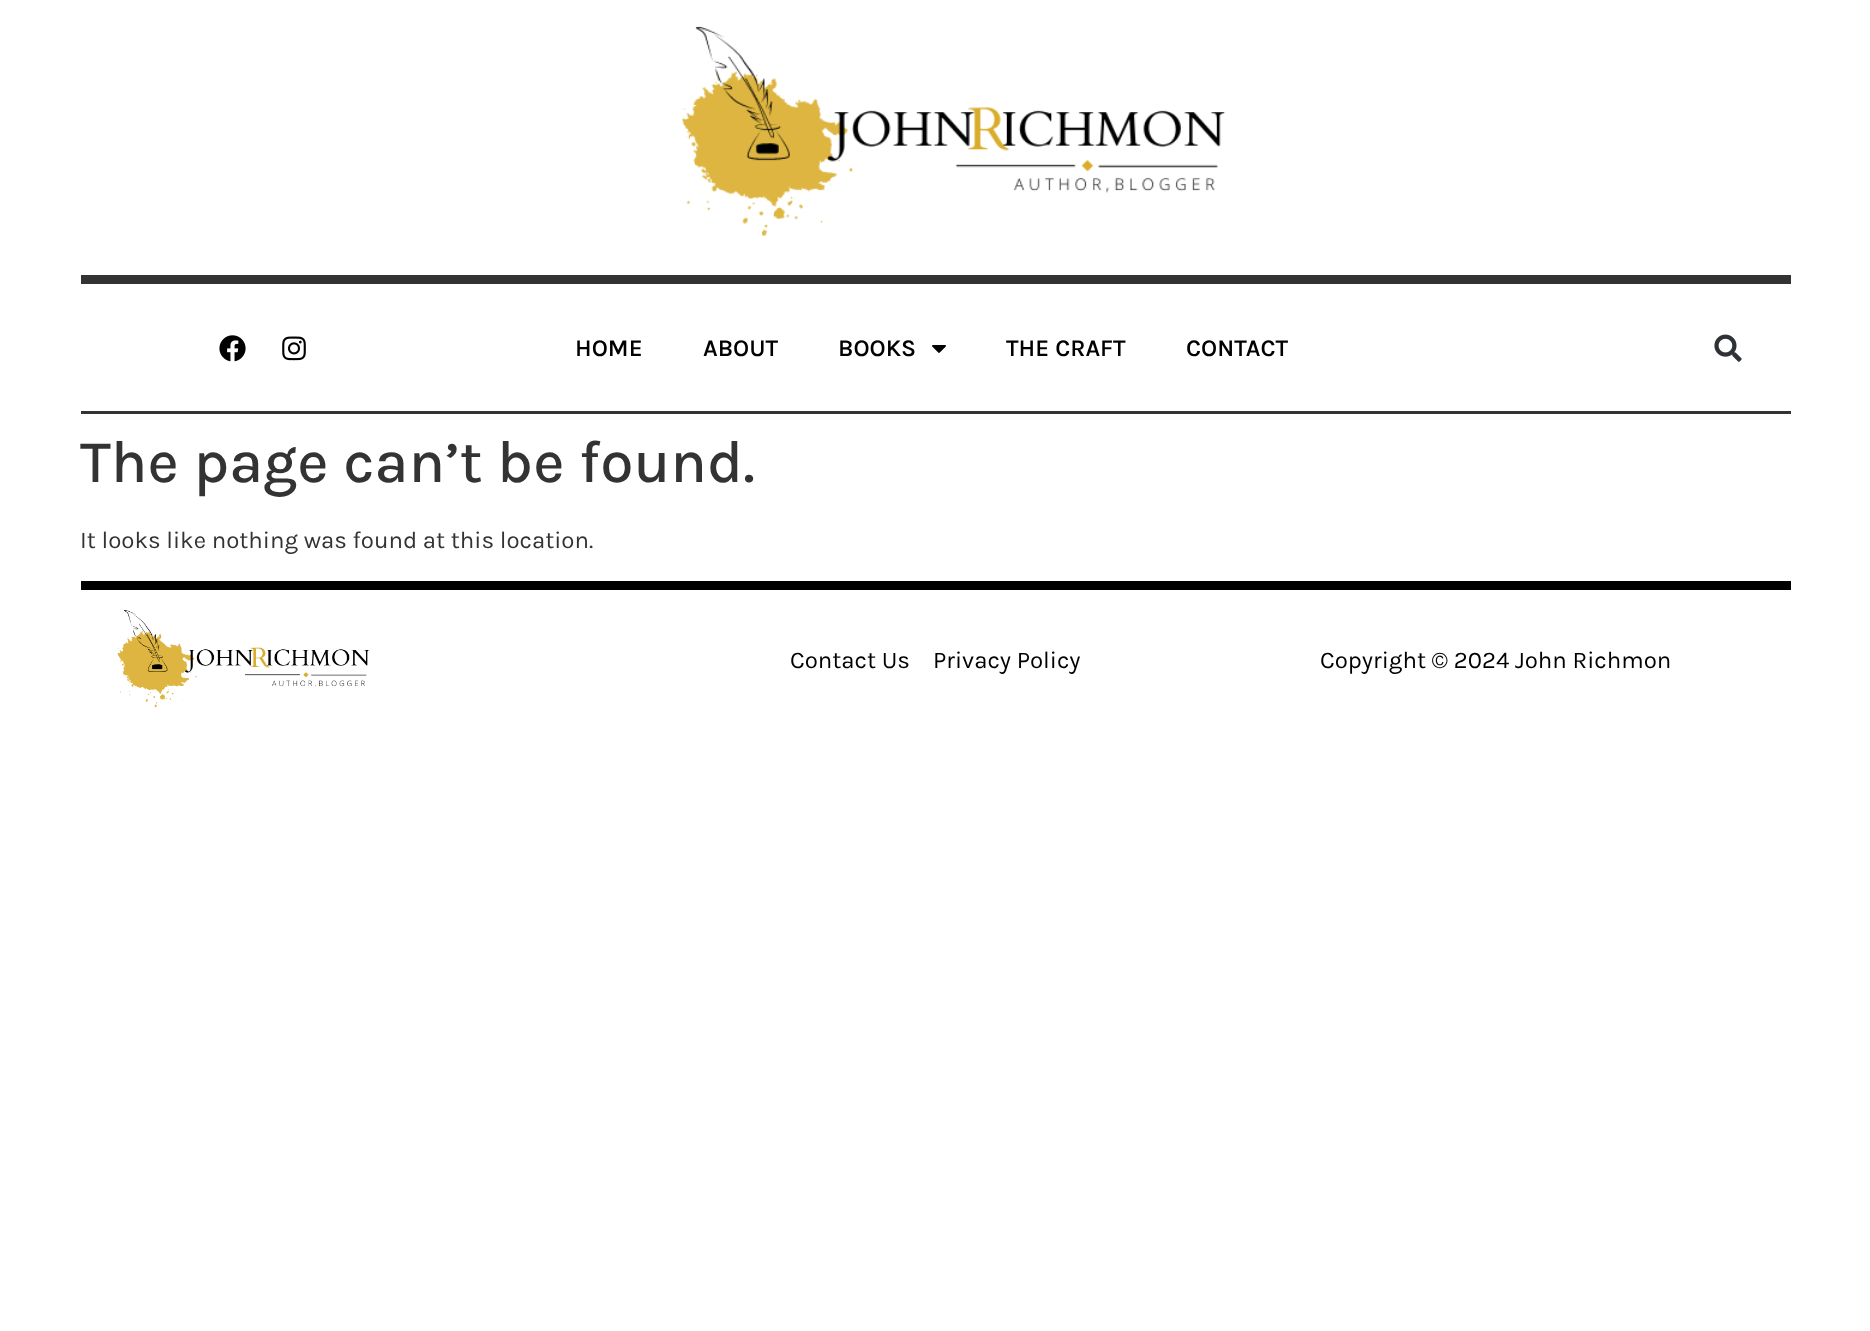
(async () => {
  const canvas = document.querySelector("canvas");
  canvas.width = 1870;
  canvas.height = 1331;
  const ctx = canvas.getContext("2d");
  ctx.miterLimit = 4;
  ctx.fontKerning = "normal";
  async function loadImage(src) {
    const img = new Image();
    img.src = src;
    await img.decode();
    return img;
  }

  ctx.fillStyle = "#ffffff";
  ctx.fillRect(0, 0, 1870, 1331);
  ctx.drawImage(await loadImage("img/1.png"), 681, 26, 545, 210);
  ctx.fillStyle = "#333333";
  ctx.fillRect(81, 275, 1710, 9);
  ctx.fillRect(81, 411, 1710, 3);
  ctx.drawImage(await loadImage("img/2.png"), 219, 335, 27, 27);
  ctx.drawImage(await loadImage("img/3.png"), 282, 336, 24, 25);
  ctx.drawImage(await loadImage("img/4.png"), 932, 345, 14, 8);
  ctx.drawImage(await loadImage("img/5.png"), 1714, 334, 28, 28);
  ctx.fillStyle = "#000000";
  ctx.fillRect(81, 581, 1710, 9);
  ctx.drawImage(await loadImage("img/6.png"), 117, 610, 253, 98);
  ctx.font = "600 24px Karla";
  for (const [text, x, y] of [
    ["HOME", 575, 356],
    ["ABOUT", 703, 356],
    ["BOOKS", 838, 356],
    ["THE CRAFT", 1006, 356],
    ["CONTACT", 1186, 356],
  ]) {
    ctx.fillText(text, x, y);
  }
  ctx.font = "500 60px Karla";
  ctx.fillStyle = "#333333";
  ctx.fillText("The page can’t be found.", 80, 482);
  ctx.font = "24px Karla";
  ctx.fillText("It looks like nothing was found at this location.", 80, 548);
  ctx.fillStyle = "#000000";
  for (const [text, x, y] of [
    ["Contact Us", 790, 668],
    ["Privacy Policy", 933, 668],
    ["Copyright © 2024 John Richmon", 1320, 668],
  ]) {
    ctx.fillText(text, x, y);
  }
})();
